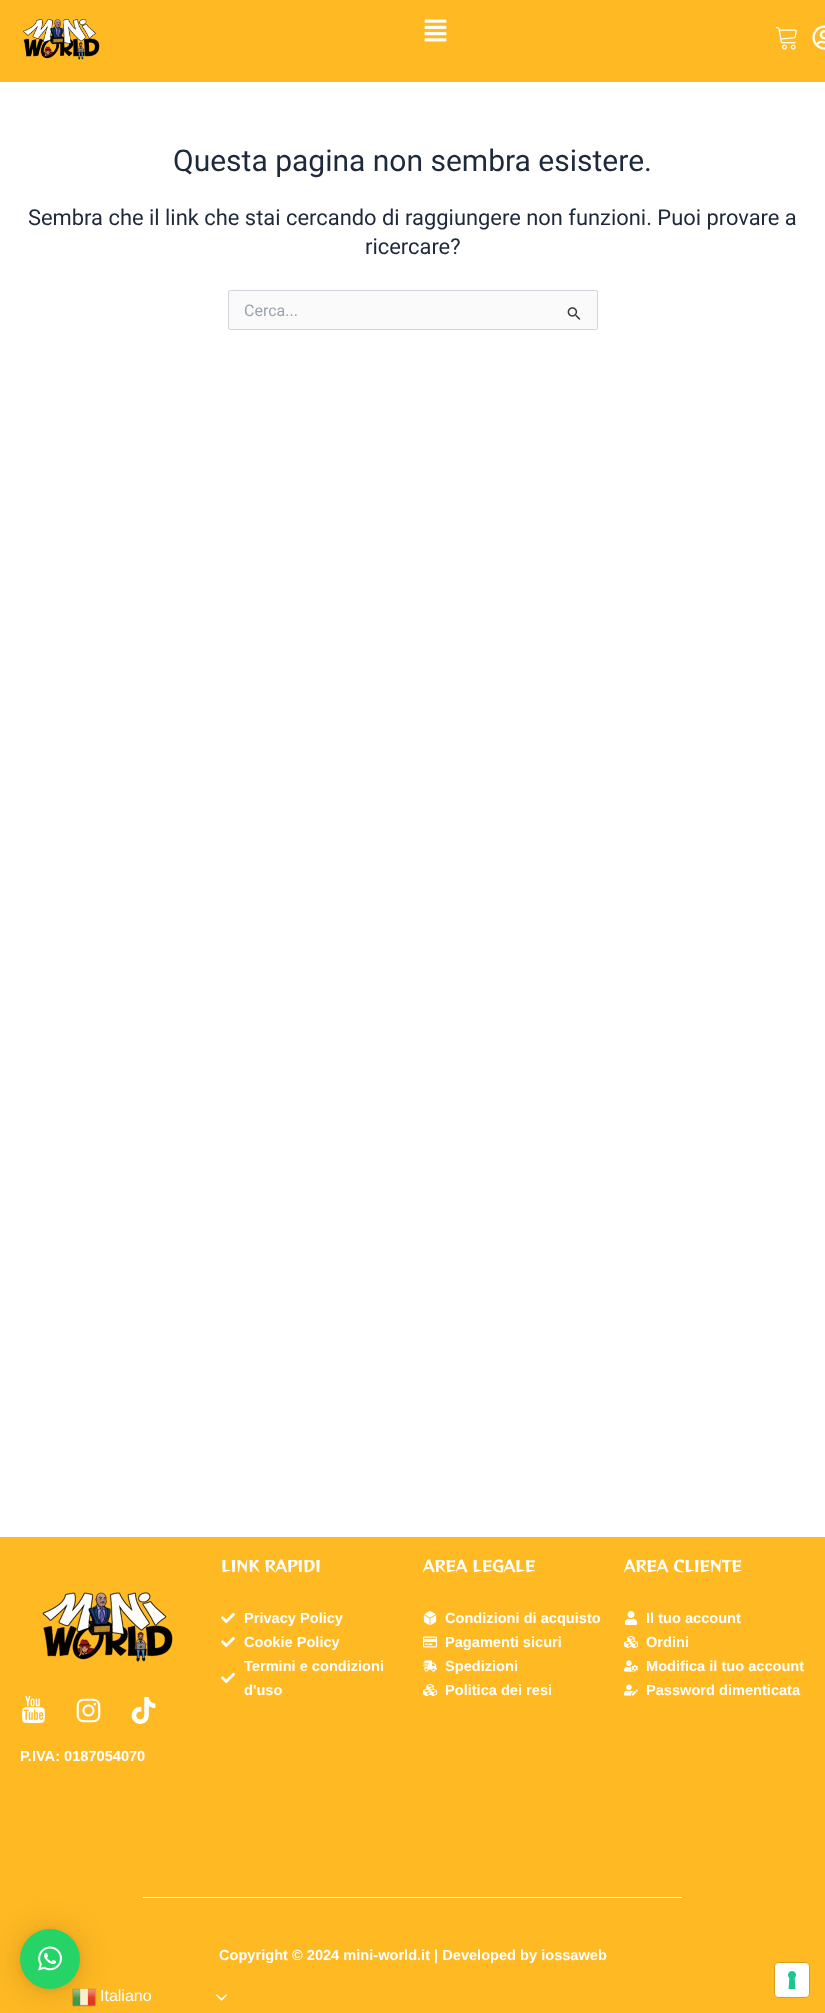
(async () => {
  const canvas = document.querySelector("canvas");
  canvas.width = 825;
  canvas.height = 2013;
  const ctx = canvas.getContext("2d");
  ctx.miterLimit = 4;
  ctx.fontKerning = "normal";
  async function loadImage(src) {
    const img = new Image();
    img.src = src;
    await img.decode();
    return img;
  }

  ctx.fillStyle = "#ffffff";
  ctx.fillRect(0, 0, 825, 2013);
  ctx.fillStyle = "#ffb923";
  ctx.fillRect(0, 0, 825, 82);
  ctx.drawImage(await loadImage("img/1.png"), 23, 19, 77, 41);
  ctx.drawImage(await loadImage("img/2.png"), 424, 19, 23, 23);
  ctx.drawImage(await loadImage("img/3.png"), 775, 27, 22, 23);
  ctx.drawImage(await loadImage("img/4.png"), 812, 25, 13, 25);
  ctx.fillStyle = "#fafafa";
  ctx.beginPath();
  ctx.roundRect(228.5, 290.5, 369, 39, 1.5);
  ctx.fill();
  ctx.strokeStyle = "#d1d5db";
  ctx.stroke();
  ctx.drawImage(await loadImage("img/5.png"), 567, 307, 14, 13);
  ctx.fillStyle = "#ffb923";
  ctx.fillRect(0, 1537, 825, 476);
  ctx.drawImage(await loadImage("img/6.png"), 221, 1612, 14, 12);
  ctx.drawImage(await loadImage("img/6.png"), 221, 1636, 14, 12);
  ctx.drawImage(await loadImage("img/6.png"), 221, 1672, 14, 12);
  ctx.drawImage(await loadImage("img/7.png"), 423, 1611, 14, 14);
  ctx.drawImage(await loadImage("img/8.png"), 423, 1636, 14, 12);
  ctx.drawImage(await loadImage("img/9.png"), 423, 1660, 14, 12);
  ctx.drawImage(await loadImage("img/10.png"), 423, 1683, 14, 14);
  ctx.drawImage(await loadImage("img/11.png"), 624, 1611, 14, 14);
  ctx.drawImage(await loadImage("img/10.png"), 624, 1635, 14, 14);
  ctx.drawImage(await loadImage("img/12.png"), 624, 1660, 14, 12);
  ctx.drawImage(await loadImage("img/13.png"), 624, 1684, 14, 12);
  ctx.drawImage(await loadImage("img/14.png"), 42, 1592, 131, 70);
  ctx.drawImage(await loadImage("img/15.png"), 22, 1696, 23, 27);
  ctx.drawImage(await loadImage("img/16.png"), 76, 1698, 25, 25);
  ctx.drawImage(await loadImage("img/17.png"), 131, 1697, 25, 27);
  ctx.fillStyle = "#ffffff";
  ctx.fillRect(143, 1897, 539, 1);
  ctx.drawImage(await loadImage("img/20.png"), 72, 1988, 24, 19);
  ctx.fillStyle = "rgba(0, 0, 0, 0.16)";
  ctx.filter = "blur(16px)";
  ctx.beginPath();
  ctx.roundRect(20, 1931, 60, 60, 30);
  ctx.fill();
  ctx.filter = "none";
  ctx.fillStyle = "rgba(0, 0, 0, 0.06)";
  ctx.filter = "blur(3px)";
  ctx.beginPath();
  ctx.roundRect(20, 1930, 60, 60, 30);
  ctx.fill();
  ctx.filter = "none";
  ctx.fillStyle = "#25d366";
  ctx.beginPath();
  ctx.arc(50, 1959, 30, 0, Math.PI * 2);
  ctx.fill();
  ctx.drawImage(await loadImage("img/18.png"), 38, 1946, 24, 25);
  ctx.beginPath();
  ctx.roundRect(774.5, 1962.5, 35, 35, 4.5);
  ctx.strokeStyle = "#d99d1e";
  ctx.stroke();
  ctx.fillStyle = "#ffffff";
  ctx.beginPath();
  ctx.roundRect(775, 1963, 34, 34, 4);
  ctx.fill();
  ctx.drawImage(await loadImage("img/19.png"), 788, 1971, 8, 18);
  ctx.drawImage(await loadImage("img/21.png"), 216, 1994, 11, 7);
  ctx.font = "30px Roboto";
  ctx.fillStyle = "#1e293b";
  ctx.fillText("Questa pagina non sembra esistere.", 173, 171);
  ctx.font = "21.9px Roboto";
  ctx.fillText("Sembra che il link che stai cercando di raggiungere non funzioni. Puoi provare a", 28, 225);
  ctx.fillText("ricercare?", 365, 254);
  ctx.font = "16px Roboto";
  ctx.fillStyle = "#9ca3af";
  ctx.fillText("Cerca...", 244, 316);
  ctx.font = "bold 15px Reggae One";
  ctx.fillStyle = "#ffffff";
  ctx.fillText("LINK RAPIDI", 221, 1572);
  ctx.font = "bold 14.6px Liberation Sans";
  for (const [text, x, y] of [
    ["Privacy Policy", 244, 1623],
    ["Cookie Policy", 244, 1647],
    ["Termini e condizioni", 244, 1671],
    ["d'uso", 244, 1695],
  ]) {
    ctx.fillText(text, x, y);
  }
  ctx.font = "bold 15px Reggae One";
  ctx.fillText("AREA LEGALE", 423, 1572);
  ctx.font = "bold 14.6px Liberation Sans";
  for (const [text, x, y] of [
    ["Condizioni di acquisto", 445, 1623],
    ["Pagamenti sicuri", 445, 1647],
    ["Spedizioni", 445, 1671],
    ["Politica dei resi", 445, 1695],
  ]) {
    ctx.fillText(text, x, y);
  }
  ctx.font = "bold 15px Reggae One";
  ctx.fillText("AREA CLIENTE", 624, 1572);
  ctx.font = "bold 14.6px Liberation Sans";
  for (const [text, x, y] of [
    ["Il tuo account", 646, 1623],
    ["Ordini", 646, 1647],
    ["Modifica il tuo account", 646, 1671],
    ["Password dimenticata", 646, 1695],
    ["P.IVA: 0187054070", 20, 1761],
    ["Copyright © 2024 mini-world.it | Developed by iossaweb", 219, 1960],
  ]) {
    ctx.fillText(text, x, y);
  }
  ctx.font = "16px Liberation Sans";
  ctx.fillText("Italiano", 100, 2001);
})();
